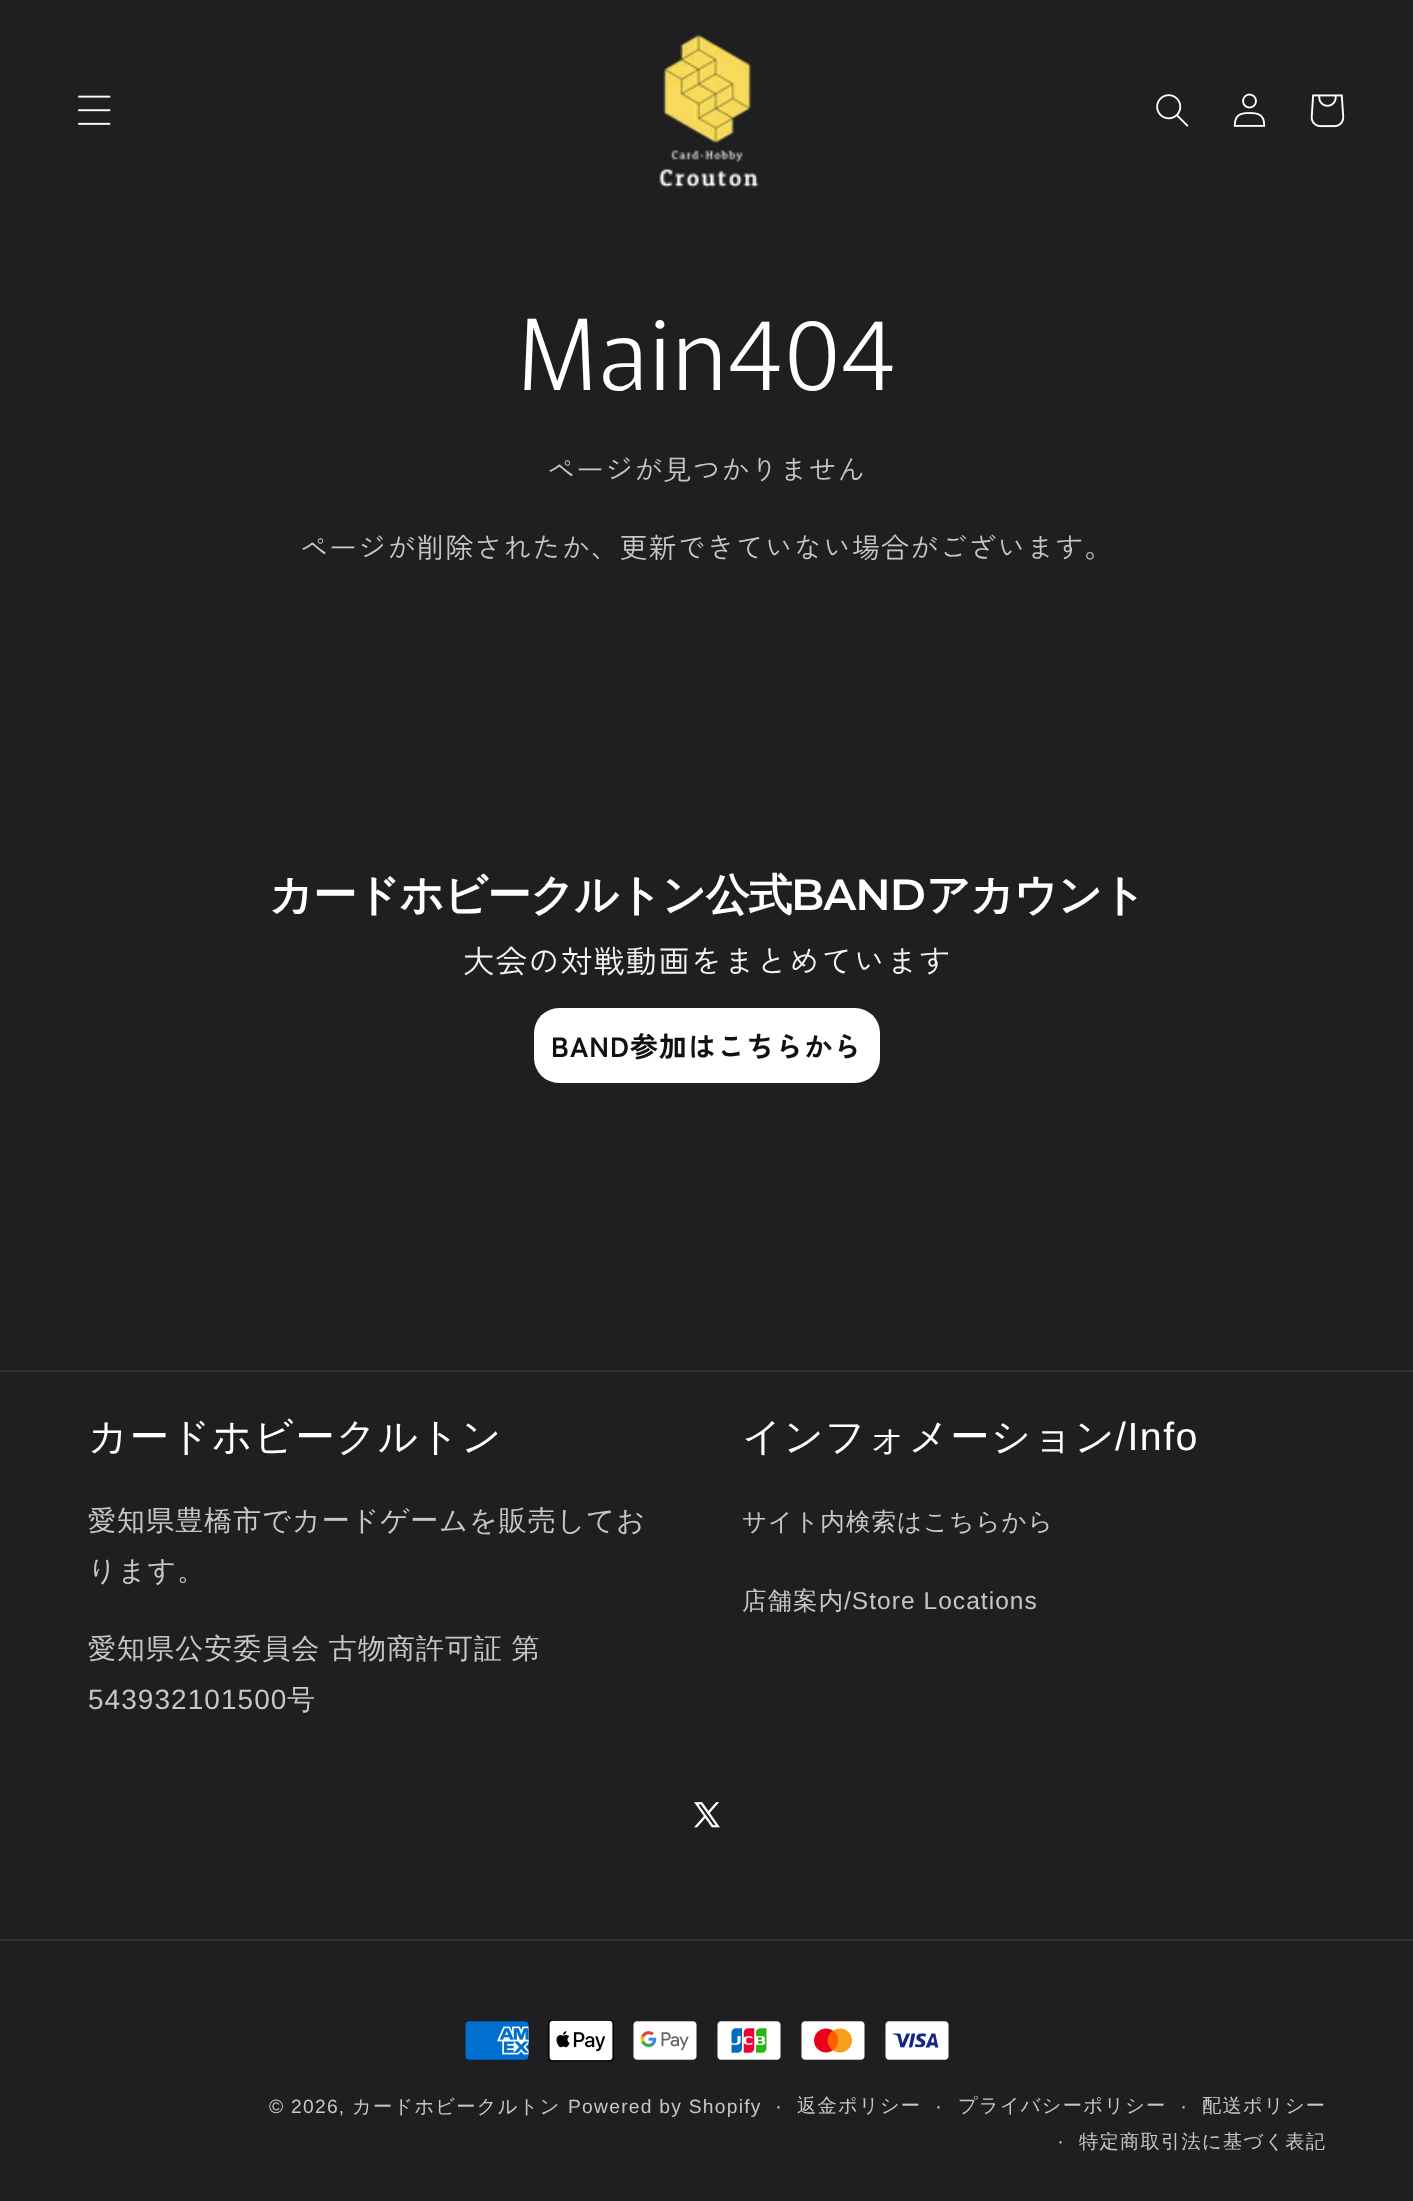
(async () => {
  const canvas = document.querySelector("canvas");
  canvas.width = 1413;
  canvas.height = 2201;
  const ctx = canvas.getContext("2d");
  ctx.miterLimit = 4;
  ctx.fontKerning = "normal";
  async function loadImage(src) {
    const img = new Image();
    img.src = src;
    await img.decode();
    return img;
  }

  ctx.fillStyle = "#1f1f21";
  ctx.fillRect(0, 0, 1413, 2201);
  ctx.drawImage(await loadImage("img/1.png"), 78, 95, 33, 30);
  ctx.drawImage(await loadImage("img/2.png"), 659, 34, 100, 154);
  ctx.drawImage(await loadImage("img/3.png"), 1156, 94, 33, 33);
  ctx.drawImage(await loadImage("img/4.png"), 1233, 93, 33, 34);
  ctx.drawImage(await loadImage("img/5.png"), 1310, 94, 35, 34);
  ctx.fillStyle = "#ffffff";
  ctx.beginPath();
  ctx.roundRect(534, 1008, 346, 75, 25);
  ctx.fill();
  ctx.fillStyle = "#313133";
  ctx.fillRect(0, 1370, 1413, 2);
  ctx.drawImage(await loadImage("img/6.png"), 694, 1802, 26, 26);
  ctx.fillRect(0, 1939, 1413, 2);
  ctx.drawImage(await loadImage("img/7.png"), 465, 2021, 64, 39);
  ctx.drawImage(await loadImage("img/8.png"), 548, 2020, 66, 42);
  ctx.drawImage(await loadImage("img/9.png"), 633, 2021, 64, 39);
  ctx.drawImage(await loadImage("img/10.png"), 717, 2021, 64, 39);
  ctx.drawImage(await loadImage("img/11.png"), 801, 2021, 64, 39);
  ctx.drawImage(await loadImage("img/12.png"), 885, 2021, 64, 39);
  ctx.letterSpacing = "1.5px";
  ctx.font = "300 98px Murecho";
  ctx.fillStyle = "#ffffff";
  ctx.fillText("Main404", 517, 390);
  ctx.letterSpacing = "1.05px";
  ctx.font = "28px Zen Kaku Gothic New";
  ctx.fillStyle = "#c7c7c8";
  ctx.fillText("ページが見つかりません", 547, 480);
  ctx.fillText("ページが削除されたか、更新できていない場合がございます。", 300, 558);
  ctx.letterSpacing = "-0.9px";
  ctx.font = "bold 43.75px WenQuanYi Zen Hei";
  ctx.fillStyle = "#ffffff";
  ctx.fillText("カードホビークルトン公式", 269, 910);
  ctx.font = "600 43.75px Montserrat";
  ctx.fillText("BAND", 791, 910);
  ctx.font = "bold 43.75px WenQuanYi Zen Hei";
  ctx.fillText("アカウント", 926, 910);
  ctx.letterSpacing = "1.05px";
  ctx.font = "31.5px Zen Kaku Gothic New";
  ctx.fillStyle = "#f4f4f4";
  ctx.fillText("大会の対戦動画をまとめています", 463, 973);
  ctx.font = "bold 28px Zen Kaku Gothic New";
  ctx.fillStyle = "#111111";
  ctx.fillText("BAND参加はこちらから", 551, 1057);
  ctx.letterSpacing = "1.5px";
  ctx.font = "500 39.25px WenQuanYi Zen Hei";
  ctx.fillStyle = "#ffffff";
  ctx.fillText("カードホビークルトン", 88, 1450);
  ctx.letterSpacing = "1.05px";
  ctx.font = "500 28px WenQuanYi Zen Hei";
  ctx.fillStyle = "#c7c7c8";
  ctx.fillText("愛知県豊橋市でカードゲームを販売してお", 88, 1530);
  ctx.fillText("ります。", 88, 1580);
  ctx.wordSpacing = "-1px";
  ctx.fillText("愛知県公安委員会 古物商許可証 第", 88, 1658);
  ctx.wordSpacing = "0px";
  ctx.font = "28px Liberation Sans";
  ctx.fillText("543932101500", 88, 1709);
  ctx.font = "500 28px WenQuanYi Zen Hei";
  ctx.fillText("号", 287, 1709);
  ctx.letterSpacing = "1.5px";
  ctx.font = "500 39.25px WenQuanYi Zen Hei";
  ctx.fillStyle = "#ffffff";
  ctx.fillText("インフォメーション", 742, 1450);
  ctx.font = "39.25px Liberation Sans";
  ctx.fillText("/Info", 1115, 1450);
  ctx.letterSpacing = "1.05px";
  ctx.font = "500 24.5px WenQuanYi Zen Hei";
  ctx.fillStyle = "#c7c7c8";
  ctx.fillText("サイト内検索はこちらから", 742, 1530);
  ctx.fillText("店舗案内", 742, 1609);
  ctx.font = "24.5px Liberation Sans";
  ctx.fillText("/Store Locations", 844, 1609);
  ctx.letterSpacing = "1.25px";
  ctx.font = "19.25px Liberation Sans";
  ctx.fillText("© 2026,", 269, 2113);
  ctx.font = "500 19.25px WenQuanYi Zen Hei";
  ctx.fillText("カードホビークルトン", 352, 2113);
  ctx.font = "19.25px Liberation Sans";
  ctx.fillText("Powered by Shopify", 568, 2113);
  ctx.font = "21px Liberation Sans";
  ctx.fillText("·", 775, 2113);
  ctx.font = "500 19.25px WenQuanYi Zen Hei";
  ctx.fillText("返金ポリシー", 797, 2112);
  ctx.font = "21px Liberation Sans";
  ctx.fillText("·", 935, 2113);
  ctx.font = "500 19.25px WenQuanYi Zen Hei";
  ctx.fillText("プライバシーポリシー", 958, 2112);
  ctx.font = "21px Liberation Sans";
  ctx.fillText("·", 1180, 2113);
  ctx.font = "500 19.25px WenQuanYi Zen Hei";
  ctx.fillText("配送ポリシー", 1202, 2112);
  ctx.font = "21px Liberation Sans";
  ctx.fillText("·", 1057, 2148);
  ctx.font = "500 19.25px WenQuanYi Zen Hei";
  ctx.fillText("特定商取引法に基づく表記", 1079, 2148);
})();
